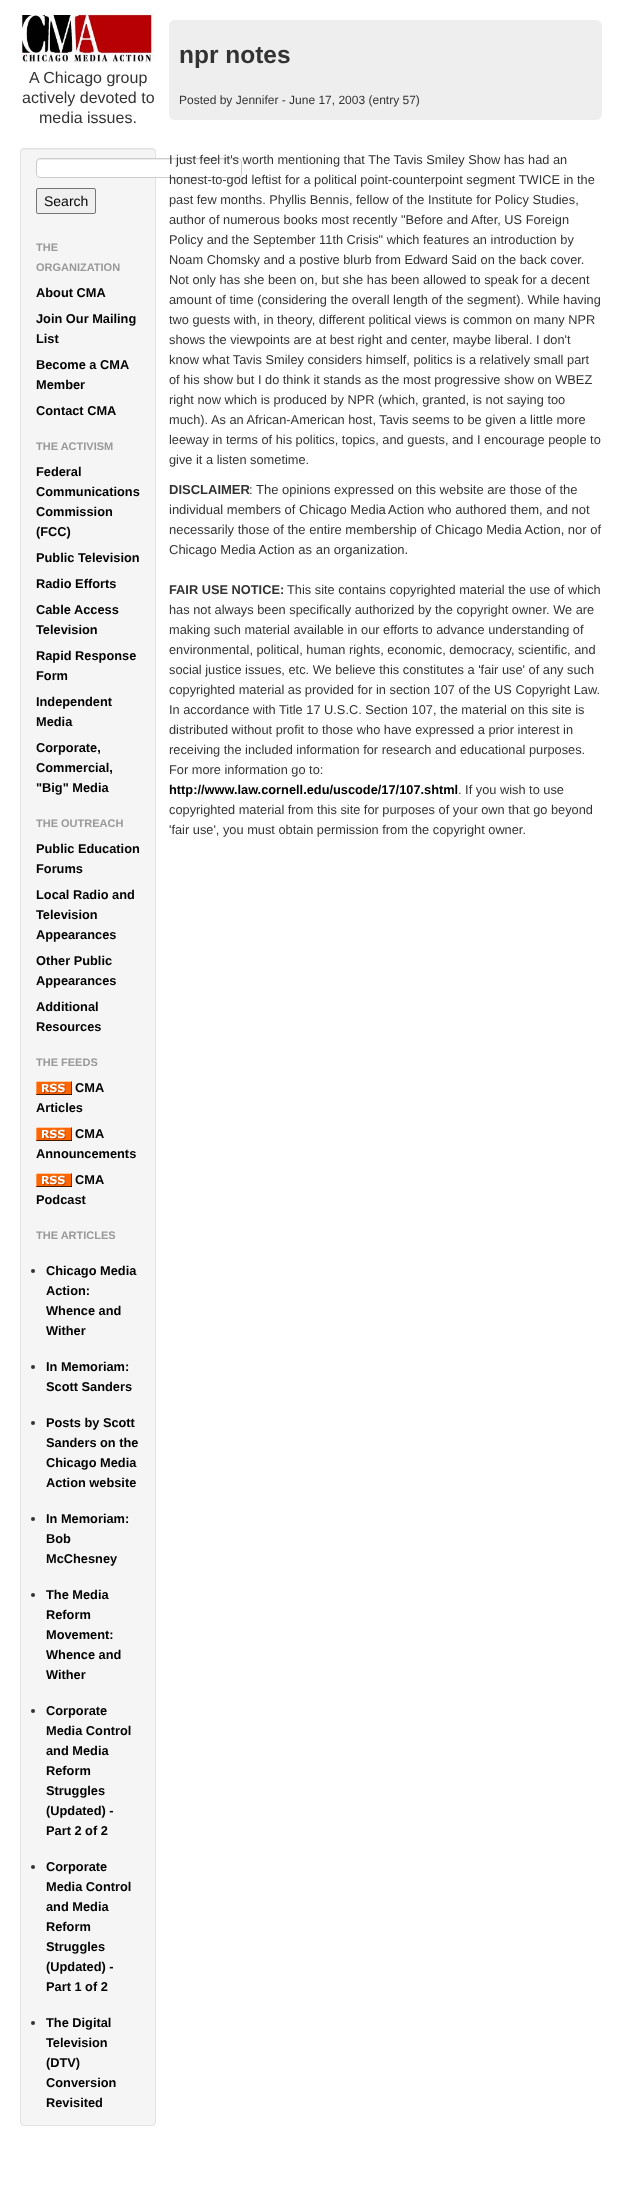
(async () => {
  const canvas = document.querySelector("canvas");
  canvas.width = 622;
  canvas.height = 2193;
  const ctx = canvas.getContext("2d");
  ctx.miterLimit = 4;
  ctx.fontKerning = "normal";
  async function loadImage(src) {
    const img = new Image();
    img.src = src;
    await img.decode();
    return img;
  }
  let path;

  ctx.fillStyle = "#ffffff";
  ctx.fillRect(0, 0, 622, 2193);
  ctx.drawImage(await loadImage("img/1.png"), 20, 10, 135, 53);
  ctx.fillStyle = "#f5f5f5";
  ctx.beginPath();
  ctx.roundRect(20, 148, 136, 1978, 4);
  ctx.fill();
  ctx.fillStyle = "#e9e9e9";
  path = new Path2D("M24 150H152C154 150 155 151 155 153C155 151 155 149 153 149H23C21 149 21 151 21 153C21 151 22 150 24 150Z");
  ctx.fill(path);
  ctx.beginPath();
  ctx.roundRect(20.5, 148.5, 135, 1977, 3.5);
  ctx.strokeStyle = "#e3e3e3";
  ctx.stroke();
  ctx.fillStyle = "#ffffff";
  ctx.beginPath();
  ctx.roundRect(36, 158, 206, 20, 4);
  ctx.fill();
  ctx.fillStyle = "#ececec";
  path = new Path2D("M40 160H239C240 160 241 161 241 162C241 161 240 159 238 159H40C37 159 37 161 37 163C37 162 38 160 40 160Z");
  ctx.fill(path);
  ctx.beginPath();
  ctx.roundRect(36.5, 158.5, 205, 19, 3.5);
  ctx.strokeStyle = "#cccccc";
  ctx.stroke();
  ctx.fillStyle = "#efefef";
  ctx.beginPath();
  ctx.roundRect(36.5, 188.5, 59, 25, 1.5);
  ctx.fill();
  ctx.strokeStyle = "#767676";
  ctx.stroke();
  ctx.drawImage(await loadImage("img/2.png"), 36, 1081, 36, 14);
  ctx.drawImage(await loadImage("img/2.png"), 36, 1127, 36, 14);
  ctx.drawImage(await loadImage("img/2.png"), 36, 1173, 36, 14);
  ctx.fillStyle = "#333333";
  ctx.beginPath();
  ctx.arc(33, 1271, 2, 0, Math.PI * 2);
  ctx.fill();
  ctx.beginPath();
  ctx.arc(33, 1367, 2, 0, Math.PI * 2);
  ctx.fill();
  ctx.beginPath();
  ctx.arc(33, 1423, 2, 0, Math.PI * 2);
  ctx.fill();
  ctx.beginPath();
  ctx.arc(33, 1519, 2, 0, Math.PI * 2);
  ctx.fill();
  ctx.beginPath();
  ctx.arc(33, 1595, 2, 0, Math.PI * 2);
  ctx.fill();
  ctx.beginPath();
  ctx.arc(33, 1711, 2, 0, Math.PI * 2);
  ctx.fill();
  ctx.beginPath();
  ctx.arc(33, 1867, 2, 0, Math.PI * 2);
  ctx.fill();
  ctx.beginPath();
  ctx.arc(33, 2023, 2, 0, Math.PI * 2);
  ctx.fill();
  ctx.fillStyle = "#eeeeee";
  ctx.beginPath();
  ctx.roundRect(169, 20, 433, 100, 6);
  ctx.fill();
  ctx.font = "16px Liberation Sans";
  ctx.fillStyle = "#333333";
  for (const [text, x, y] of [
    ["A Chicago group", 29, 83],
    ["actively devoted to", 22, 103],
    ["media issues.", 39, 123],
  ]) {
    ctx.fillText(text, x, y);
  }
  ctx.font = "14px Liberation Sans";
  ctx.fillStyle = "#000000";
  ctx.fillText("Search", 44, 206);
  ctx.font = "bold 11px Liberation Sans";
  ctx.fillStyle = "#999999";
  ctx.fillText("THE", 36, 251);
  ctx.fillText("ORGANIZATION", 36, 271);
  ctx.font = "bold 12.8px Liberation Sans";
  ctx.fillStyle = "#000000";
  for (const [text, x, y] of [
    ["About CMA", 36, 297],
    ["Join Our Mailing", 36, 323],
    ["List", 36, 343],
    ["Become a CMA", 36, 369],
    ["Member", 36, 389],
    ["Contact CMA", 36, 415],
  ]) {
    ctx.fillText(text, x, y);
  }
  ctx.font = "bold 11px Liberation Sans";
  ctx.fillStyle = "#999999";
  ctx.fillText("THE ACTIVISM", 36, 450);
  ctx.font = "bold 12.8px Liberation Sans";
  ctx.fillStyle = "#000000";
  for (const [text, x, y] of [
    ["Federal", 36, 476],
    ["Communications", 36, 496],
    ["Commission", 36, 516],
    ["(FCC)", 36, 536],
    ["Public Television", 36, 562],
    ["Radio Efforts", 36, 588],
    ["Cable Access", 36, 614],
    ["Television", 36, 634],
    ["Rapid Response", 36, 660],
    ["Form", 36, 680],
    ["Independent", 36, 706],
    ["Media", 36, 726],
    ["Corporate,", 36, 752],
    ["Commercial,", 36, 772],
    ["\"Big\" Media", 36, 792],
  ]) {
    ctx.fillText(text, x, y);
  }
  ctx.font = "bold 11px Liberation Sans";
  ctx.fillStyle = "#999999";
  ctx.fillText("THE OUTREACH", 36, 827);
  ctx.font = "bold 12.8px Liberation Sans";
  ctx.fillStyle = "#000000";
  for (const [text, x, y] of [
    ["Public Education", 36, 853],
    ["Forums", 36, 873],
    ["Local Radio and", 36, 899],
    ["Television", 36, 919],
    ["Appearances", 36, 939],
    ["Other Public", 36, 965],
    ["Appearances", 36, 985],
    ["Additional", 36, 1011],
    ["Resources", 36, 1031],
  ]) {
    ctx.fillText(text, x, y);
  }
  ctx.font = "bold 11px Liberation Sans";
  ctx.fillStyle = "#999999";
  ctx.fillText("THE FEEDS", 36, 1066);
  ctx.font = "bold 12.8px Liberation Sans";
  ctx.fillStyle = "#000000";
  for (const [text, x, y] of [
    ["CMA", 75, 1092],
    ["Articles", 36, 1112],
    ["CMA", 75, 1138],
    ["Announcements", 36, 1158],
    ["CMA", 75, 1184],
    ["Podcast", 36, 1204],
  ]) {
    ctx.fillText(text, x, y);
  }
  ctx.font = "bold 11px Liberation Sans";
  ctx.fillStyle = "#999999";
  ctx.fillText("THE ARTICLES", 36, 1239);
  ctx.font = "bold 12.8px Liberation Sans";
  ctx.fillStyle = "#000000";
  for (const [text, x, y] of [
    ["Chicago Media", 46, 1275],
    ["Action:", 46, 1295],
    ["Whence and", 46, 1315],
    ["Wither", 46, 1335],
    ["In Memoriam:", 46, 1371],
    ["Scott Sanders", 46, 1391],
    ["Posts by Scott", 46, 1427],
    ["Sanders on the", 46, 1447],
    ["Chicago Media", 46, 1467],
    ["Action website", 46, 1487],
    ["In Memoriam:", 46, 1523],
    ["Bob", 46, 1543],
    ["McChesney", 46, 1563],
    ["The Media", 46, 1599],
    ["Reform", 46, 1619],
    ["Movement:", 46, 1639],
    ["Whence and", 46, 1659],
    ["Wither", 46, 1679],
    ["Corporate", 46, 1715],
    ["Media Control", 46, 1735],
    ["and Media", 46, 1755],
    ["Reform", 46, 1775],
    ["Struggles", 46, 1795],
    ["(Updated) -", 46, 1815],
    ["Part 2 of 2", 46, 1835],
    ["Corporate", 46, 1871],
    ["Media Control", 46, 1891],
    ["and Media", 46, 1911],
    ["Reform", 46, 1931],
    ["Struggles", 46, 1951],
    ["(Updated) -", 46, 1971],
    ["Part 1 of 2", 46, 1991],
    ["The Digital", 46, 2027],
    ["Television", 46, 2047],
    ["(DTV)", 46, 2067],
    ["Conversion", 46, 2087],
    ["Revisited", 46, 2107],
  ]) {
    ctx.fillText(text, x, y);
  }
  ctx.font = "bold 24.5px Liberation Sans";
  ctx.fillStyle = "#333333";
  ctx.fillText("npr notes", 179, 63);
  ctx.font = "12px Liberation Sans";
  ctx.fillText("Posted by Jennifer - June 17, 2003 (entry 57)", 179, 104);
  ctx.font = "12.8px Liberation Sans";
  for (const [text, x, y] of [
    ["I just feel it's worth mentioning that The Tavis Smiley Show has had an", 169, 164],
    ["honest-to-god leftist for a political point-counterpoint segment TWICE in the", 169, 184],
    ["past few months. Phyllis Bennis, fellow of the Institute for Policy Studies,", 169, 204],
    ["author of numerous books most recently \"Before and After, US Foreign", 169, 224],
    ["Policy and the September 11th Crisis\" which features an introduction by", 169, 244],
    ["Noam Chomsky and a postive blurb from Edward Said on the back cover.", 169, 264],
    ["Not only has she been on, but she has been allowed to speak for a decent", 169, 284],
    ["amount of time (considering the overall length of the segment). While having", 169, 304],
    ["two guests with, in theory, different political views is common on many NPR", 169, 324],
    ["shows the viewpoints are at best right and center, maybe liberal. I don't", 169, 344],
    ["know what Tavis Smiley considers himself, politics is a relatively small part", 169, 364],
    ["of his show but I do think it stands as the most progressive show on WBEZ", 169, 384],
    ["right now which is produced by NPR (which, granted, is not saying too", 169, 404],
    ["much). As an African-American host, Tavis seems to be given a little more", 169, 424],
    ["leeway in terms of his politics, topics, and guests, and I encourage people to", 169, 444],
    ["give it a listen sometime.", 169, 464],
  ]) {
    ctx.fillText(text, x, y);
  }
  ctx.font = "bold 13px Liberation Sans";
  ctx.fillText("DISCLAIMER", 169, 494);
  ctx.font = "13px Liberation Sans";
  for (const [text, x, y] of [
    [": The opinions expressed on this website are those of the", 249, 494],
    ["individual members of Chicago Media", 169, 514],
    ["Action who authored them, and not", 388, 514],
    ["necessarily those of the entire membership of Chicago Media Action, nor of", 169, 534],
    ["Chicago Media Action as an organization.", 169, 554],
  ]) {
    ctx.fillText(text, x, y);
  }
  ctx.font = "bold 12.8px Liberation Sans";
  ctx.fillText("FAIR USE NOTICE:", 169, 594);
  ctx.font = "12.8px Liberation Sans";
  for (const [text, x, y] of [
    ["This site contains copyrighted material the use of which", 287, 594],
    ["has not always been specifically authorized by the copyright owner. We are", 169, 614],
    ["making such material available in our efforts to advance understanding of", 169, 634],
    ["environmental, political, human rights, economic, democracy, scientific, and", 169, 654],
    ["social justice issues, etc. We believe this constitutes a 'fair use' of any such", 169, 674],
    ["copyrighted material as provided for in section 107 of the US Copyright Law.", 169, 694],
    ["In accordance with Title 17 U.S.C. Section 107, the material on this site is", 169, 714],
    ["distributed without profit to those who have expressed a prior interest in", 169, 734],
    ["receiving the included information for research and educational purposes.", 169, 754],
    ["For more information go to:", 169, 774],
  ]) {
    ctx.fillText(text, x, y);
  }
  ctx.font = "bold 12.8px Liberation Sans";
  ctx.fillStyle = "#000000";
  ctx.fillText("http://www.law.cornell.edu/uscode/17/107.shtml", 169, 794);
  ctx.font = "12.8px Liberation Sans";
  ctx.fillStyle = "#333333";
  for (const [text, x, y] of [
    [". If you wish to use", 458, 794],
    ["copyrighted material from this site for purposes of your own that go beyond", 169, 814],
    ["'fair use', you must obtain permission from the copyright owner.", 169, 834],
  ]) {
    ctx.fillText(text, x, y);
  }
})();
